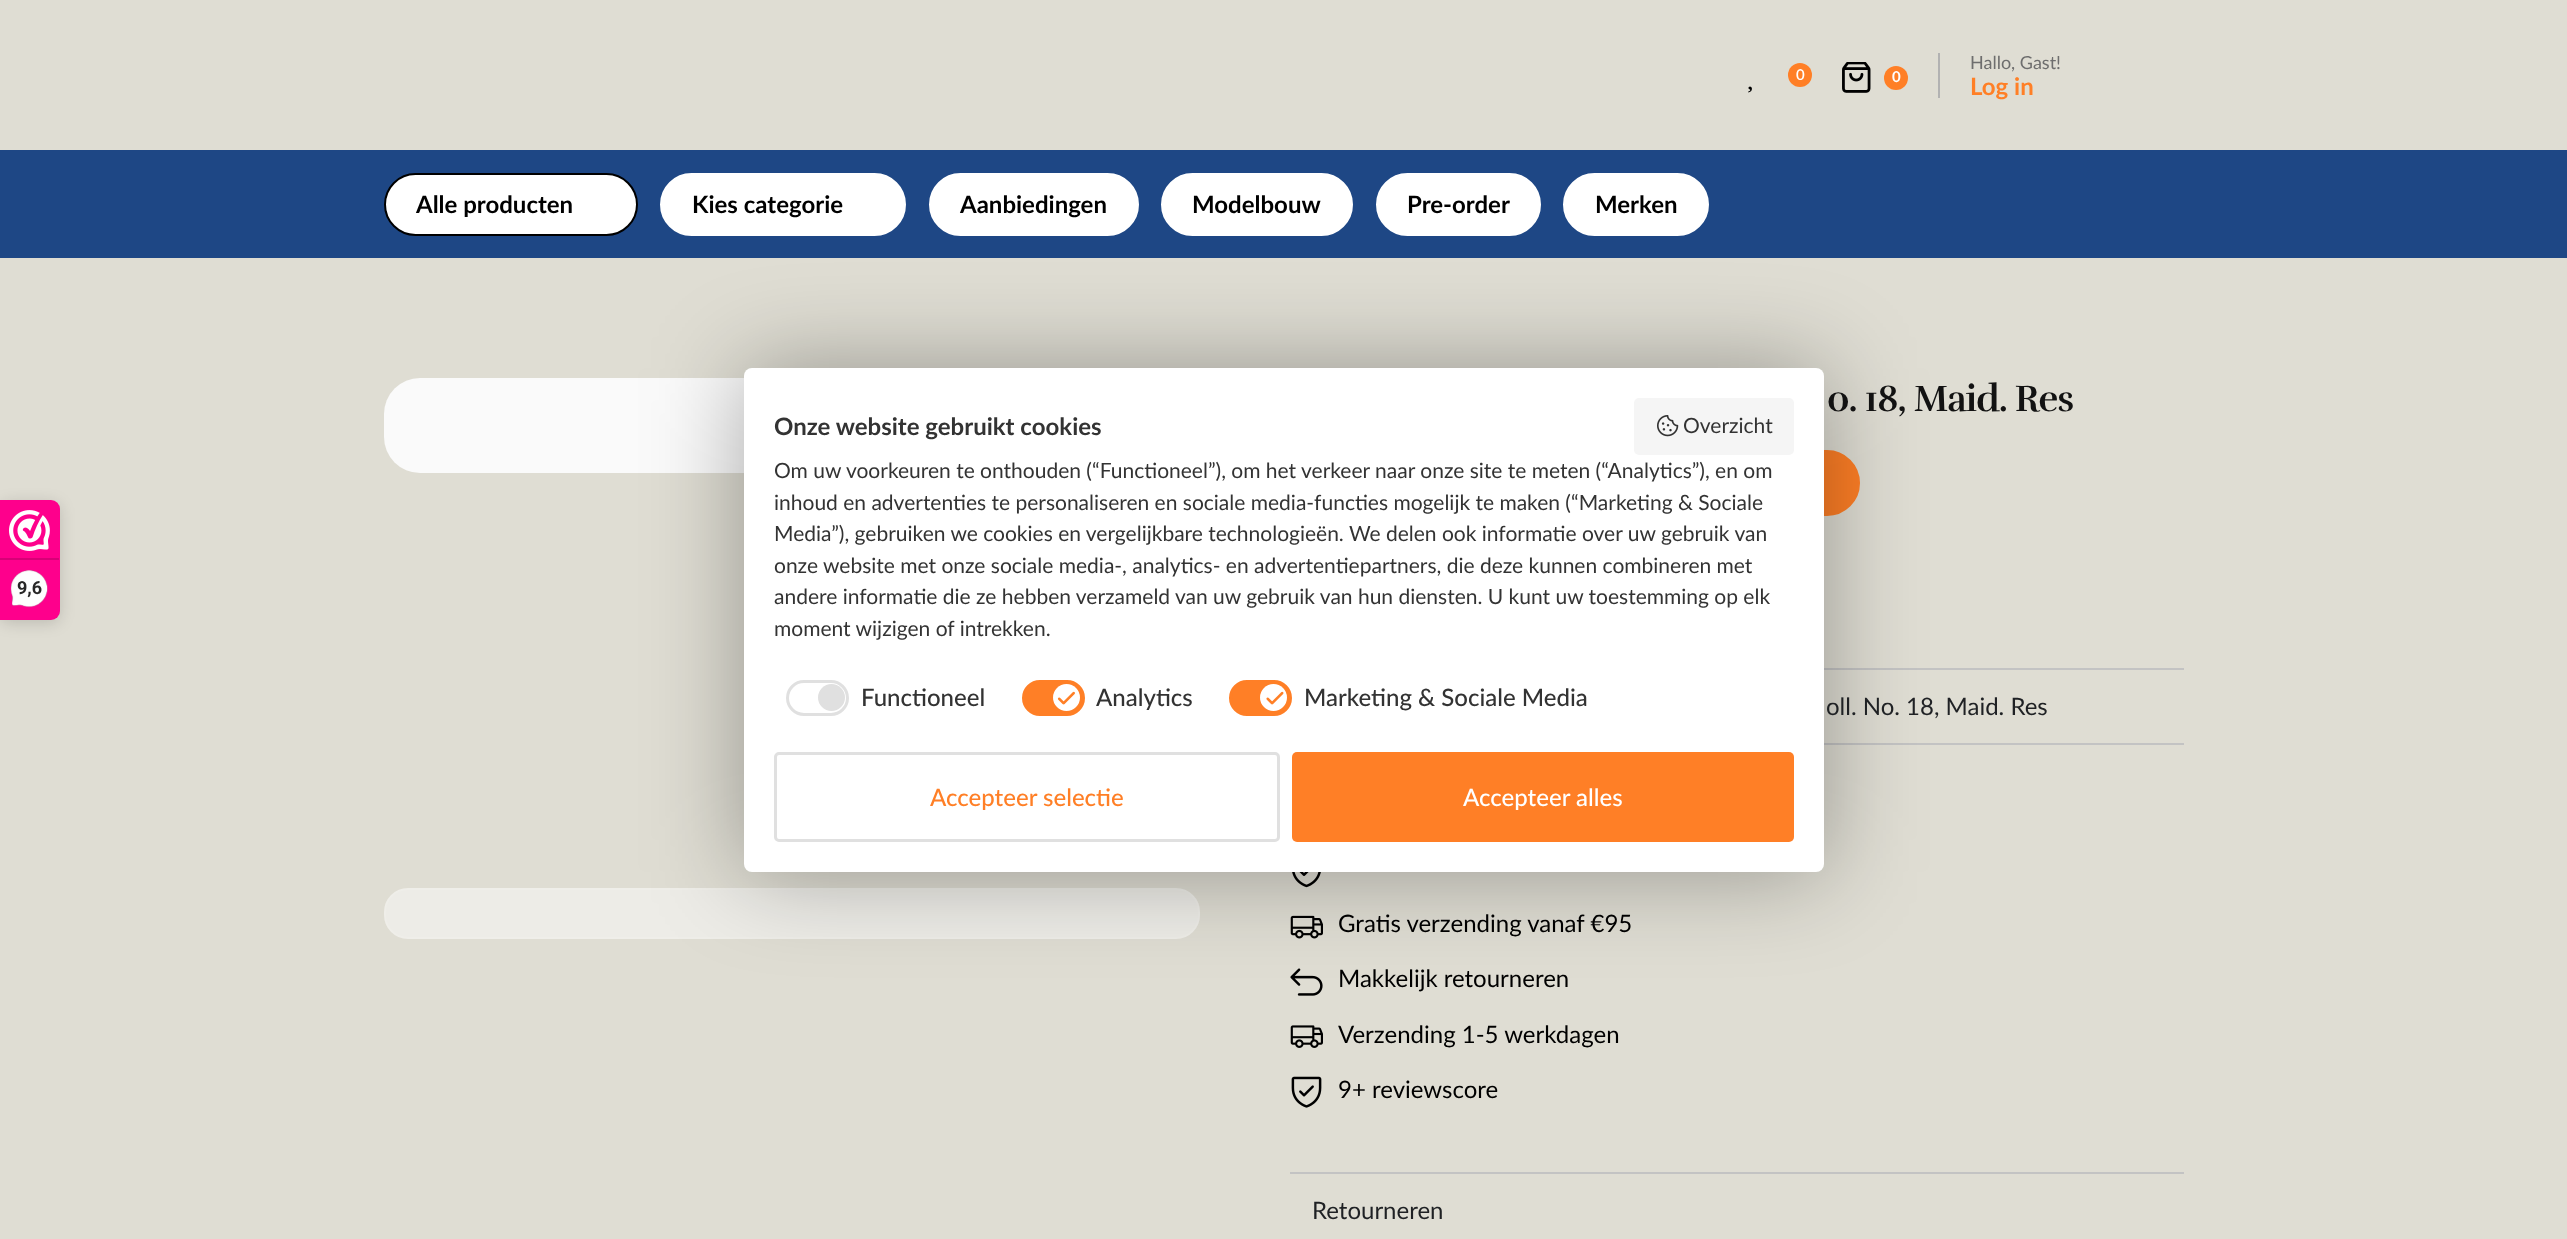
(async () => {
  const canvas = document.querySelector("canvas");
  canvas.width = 2567;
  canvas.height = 1239;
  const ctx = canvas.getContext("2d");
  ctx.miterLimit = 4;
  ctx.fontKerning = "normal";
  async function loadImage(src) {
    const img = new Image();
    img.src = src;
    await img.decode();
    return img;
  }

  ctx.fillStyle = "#dfddd3";
  ctx.fillRect(0, 0, 2567, 1239);
  ctx.fillStyle = "#ff7f26";
  ctx.beginPath();
  ctx.arc(1800, 75, 12, 0, Math.PI * 2);
  ctx.fill();
  ctx.drawImage(await loadImage("img/1.png"), 1748, 86, 4, 7);
  ctx.drawImage(await loadImage("img/2.png"), 1842, 62, 29, 31);
  ctx.beginPath();
  ctx.arc(1896, 78, 12, 0, Math.PI * 2);
  ctx.fill();
  ctx.fillStyle = "#b2b2b2";
  ctx.fillRect(1938, 53, 2, 45);
  ctx.fillStyle = "#1e4785";
  ctx.fillRect(0, 150, 2567, 108);
  ctx.fillStyle = "#ffffff";
  ctx.beginPath();
  ctx.roundRect(385, 174, 252, 61, 30.5);
  ctx.fill();
  ctx.strokeStyle = "#000000";
  ctx.lineWidth = 2;
  ctx.stroke();
  ctx.beginPath();
  ctx.roundRect(661, 174, 244, 61, 30.5);
  ctx.fill();
  ctx.strokeStyle = "#ffffff";
  ctx.stroke();
  ctx.beginPath();
  ctx.roundRect(930, 174, 208, 61, 30.5);
  ctx.fill();
  ctx.stroke();
  ctx.beginPath();
  ctx.roundRect(1162, 174, 190, 61, 30.5);
  ctx.fill();
  ctx.stroke();
  ctx.beginPath();
  ctx.roundRect(1377, 174, 163, 61, 30.5);
  ctx.fill();
  ctx.stroke();
  ctx.beginPath();
  ctx.roundRect(1564, 174, 144, 61, 30.5);
  ctx.fill();
  ctx.stroke();
  ctx.fillStyle = "#fafafa";
  ctx.beginPath();
  ctx.roundRect(384, 378, 816, 95, 36);
  ctx.fill();
  ctx.fillStyle = "#edece7";
  ctx.beginPath();
  ctx.roundRect(385, 889, 814, 49, 23);
  ctx.fill();
  ctx.strokeStyle = "#efeee9";
  ctx.stroke();
  ctx.fillStyle = "#ff7f26";
  ctx.beginPath();
  ctx.roundRect(1455, 451, 404, 64, 32);
  ctx.fill();
  ctx.strokeStyle = "#ff7f26";
  ctx.stroke();
  ctx.fillStyle = "#c3c3c3";
  ctx.fillRect(1824, 743, 360, 2);
  ctx.fillRect(1824, 668, 360, 2);
  ctx.drawImage(await loadImage("img/3.png"), 1292, 872, 29, 16);
  ctx.drawImage(await loadImage("img/4.png"), 1290, 915, 33, 24);
  ctx.drawImage(await loadImage("img/5.png"), 1290, 968, 33, 28);
  ctx.drawImage(await loadImage("img/6.png"), 1290, 1025, 33, 23);
  ctx.drawImage(await loadImage("img/7.png"), 1291, 1076, 31, 32);
  ctx.fillRect(1290, 1172, 894, 2);
  ctx.fillStyle = "rgba(0, 0, 0, 0.15)";
  ctx.filter = "blur(7.5px)";
  ctx.beginPath();
  ctx.roundRect(0, 503, 60, 120, 9);
  ctx.fill();
  ctx.filter = "none";
  ctx.fillStyle = "#fe008c";
  ctx.beginPath();
  ctx.roundRect(0, 500, 60, 120, [0, 9, 9, 0]);
  ctx.fill();
  ctx.drawImage(await loadImage("img/8.png"), 9, 510, 41, 41);
  ctx.fillStyle = "#d80077";
  ctx.fillRect(0, 558, 59, 2);
  ctx.drawImage(await loadImage("img/9.png"), 10, 570, 38, 38);
  ctx.fillStyle = "rgba(0, 0, 0, 0.33)";
  ctx.filter = "blur(48px)";
  ctx.beginPath();
  ctx.roundRect(744, 368, 1080, 504, 8);
  ctx.fill();
  ctx.filter = "none";
  ctx.fillStyle = "#ffffff";
  ctx.beginPath();
  ctx.roundRect(744, 368, 1080, 504, 8);
  ctx.fill();
  ctx.fillStyle = "#f5f5f5";
  ctx.beginPath();
  ctx.roundRect(1634, 398, 160, 57, 5);
  ctx.fill();
  ctx.drawImage(await loadImage("img/10.png"), 1657, 415, 22, 22);
  ctx.beginPath();
  ctx.roundRect(787.5, 681.5, 60, 33, 16.5);
  ctx.strokeStyle = "#e0e0e0";
  ctx.lineWidth = 3;
  ctx.stroke();
  ctx.fillStyle = "#e0e0e0";
  ctx.beginPath();
  ctx.arc(831.5, 697.5, 13.5, 0, Math.PI * 2);
  ctx.fill();
  ctx.fillStyle = "#ff7f26";
  ctx.beginPath();
  ctx.roundRect(1023.5, 681.5, 60, 33, 16.5);
  ctx.fill();
  ctx.strokeStyle = "#ff7f26";
  ctx.stroke();
  ctx.fillStyle = "#ffffff";
  ctx.beginPath();
  ctx.arc(1066.5, 697.5, 13.5, 0, Math.PI * 2);
  ctx.fill();
  ctx.drawImage(await loadImage("img/11.png"), 1057, 691, 18, 14);
  ctx.fillStyle = "#ff7f26";
  ctx.beginPath();
  ctx.roundRect(1230.5, 681.5, 60, 33, 16.5);
  ctx.fill();
  ctx.stroke();
  ctx.fillStyle = "#ffffff";
  ctx.beginPath();
  ctx.arc(1273.5, 697.5, 13.5, 0, Math.PI * 2);
  ctx.fill();
  ctx.drawImage(await loadImage("img/12.png"), 1266, 691, 18, 14);
  ctx.beginPath();
  ctx.roundRect(775.5, 753.5, 503, 87, 3.5);
  ctx.strokeStyle = "#e0e0e0";
  ctx.stroke();
  ctx.fillStyle = "#ff7f26";
  ctx.beginPath();
  ctx.roundRect(1292, 752, 502, 90, 5);
  ctx.fill();
  ctx.font = "600 15px Lato";
  ctx.fillStyle = "#ffffff";
  ctx.fillText("0", 1796, 80);
  ctx.font = "bold 15px Lato";
  ctx.fillText("0", 1892, 82);
  ctx.font = "18px Lato";
  ctx.fillStyle = "#6e6e6e";
  ctx.fillText("Hallo, Gast!", 1970, 69);
  ctx.font = "bold 24px Lato";
  ctx.fillStyle = "#ff7f26";
  ctx.fillText("Log in", 1970, 95);
  ctx.fillStyle = "#000000";
  for (const [text, x, y] of [
    ["Alle producten", 416, 213],
    ["Kies categorie", 692, 213],
    ["Aanbiedingen", 960, 213],
    ["Modelbouw", 1192, 213],
    ["Pre-order", 1407, 213],
    ["Merken", 1595, 213],
  ]) {
    ctx.fillText(text, x, y);
  }
  ctx.letterSpacing = "-1.1px";
  ctx.font = "bold 37.5px Rufina";
  ctx.fillStyle = "#121212";
  ctx.fillText("o. 18, Maid. Res", 1827, 411);
  ctx.letterSpacing = "0px";
  ctx.font = "24px Lato";
  ctx.fillStyle = "#1f2124";
  ctx.fillText("oll. No. 18, Maid. Res", 1826, 715);
  ctx.fillStyle = "#000000";
  for (const [text, x, y] of [
    ["Gratis verzending vanaf €95", 1338, 932],
    ["Makkelijk retourneren", 1338, 987],
    ["Verzending 1-5 werkdagen", 1338, 1043],
    ["9+ reviewscore", 1338, 1098],
  ]) {
    ctx.fillText(text, x, y);
  }
  ctx.fillStyle = "#1f2124";
  ctx.fillText("Retourneren", 1312, 1219);
  ctx.font = "bold 18px Roboto";
  ctx.fillStyle = "#272626";
  ctx.fillText("9,6", 17, 594);
  ctx.font = "bold 24px Lato";
  ctx.fillStyle = "#333333";
  ctx.fillText("Onze website gebruikt cookies", 774, 435);
  ctx.font = "21px Lato";
  for (const [text, x, y] of [
    ["Overzicht", 1683, 433],
    ["Om uw voorkeuren te onthouden (“Functioneel”), om het verkeer naar onze site te meten (“Analytics”), en om", 774, 478],
    ["inhoud en advertenties te personaliseren en sociale media-functies mogelijk te maken (“Marketing & Sociale", 774, 510],
    ["Media”), gebruiken we cookies en vergelijkbare technologieën. We delen ook informatie over uw gebruik van", 774, 541],
    ["onze website met onze sociale media-, analytics- en advertentiepartners, die deze kunnen combineren met", 774, 573],
    ["andere informatie die ze hebben verzameld van uw gebruik van hun diensten. U kunt uw toestemming op elk", 774, 604],
    ["moment wijzigen of intrekken.", 774, 636],
  ]) {
    ctx.fillText(text, x, y);
  }
  ctx.font = "500 24px Lato";
  for (const [text, x, y] of [
    ["Functioneel", 861, 706],
    ["Analytics", 1096, 706],
    ["Marketing & Sociale Media", 1304, 706],
  ]) {
    ctx.fillText(text, x, y);
  }
  ctx.fillStyle = "#ff7f26";
  ctx.fillText("Accepteer selectie", 930, 806);
  ctx.fillStyle = "#ffffff";
  ctx.fillText("Accepteer alles", 1463, 806);
})();
